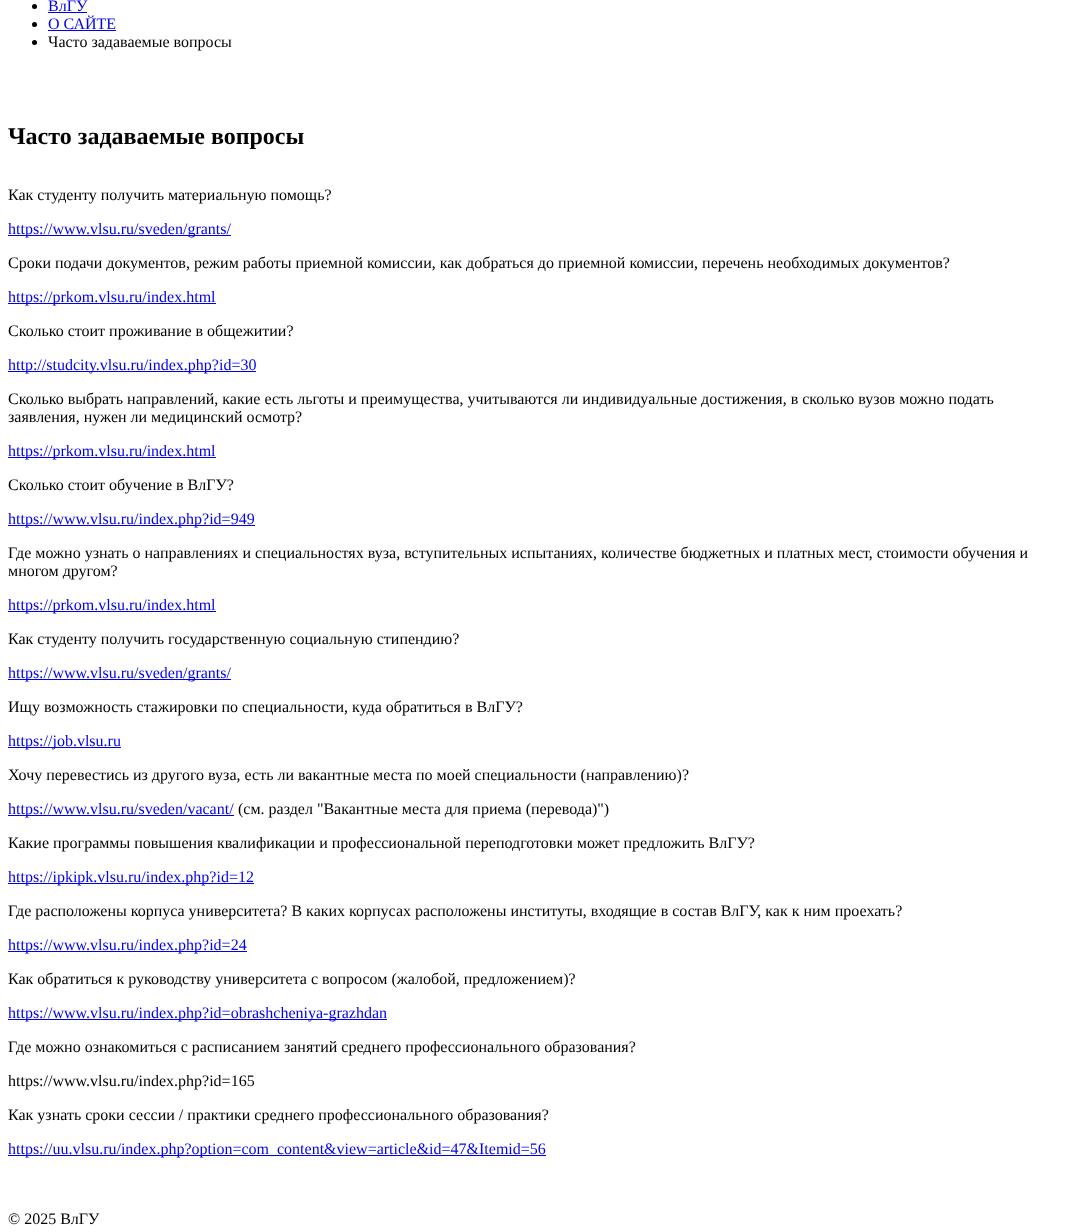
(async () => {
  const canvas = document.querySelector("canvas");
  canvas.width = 1065;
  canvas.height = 1232;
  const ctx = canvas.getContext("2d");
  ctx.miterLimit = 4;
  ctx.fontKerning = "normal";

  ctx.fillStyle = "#ffffff";
  ctx.fillRect(0, 0, 1065, 1232);
  ctx.fillStyle = "#000000";
  ctx.beginPath();
  ctx.arc(34.5, 6.5, 2.5, 0, Math.PI * 2);
  ctx.fill();
  ctx.fillStyle = "#0000ee";
  ctx.fillRect(48, 12, 39, 1);
  ctx.fillStyle = "#000000";
  ctx.beginPath();
  ctx.arc(34.5, 24.5, 2.5, 0, Math.PI * 2);
  ctx.fill();
  ctx.fillStyle = "#0000ee";
  ctx.fillRect(48, 30, 68, 1);
  ctx.fillStyle = "#000000";
  ctx.beginPath();
  ctx.arc(34.5, 42.5, 2.5, 0, Math.PI * 2);
  ctx.fill();
  for (const [x, y, w, h, color] of [
    [8, 235, 223, 1, "#0000ee"],
    [8, 303, 208, 1, "#0000ee"],
    [8, 371, 248, 1, "#0000ee"],
    [8, 457, 208, 1, "#0000ee"],
    [8, 525, 247, 1, "#0000ee"],
    [8, 611, 208, 1, "#0000ee"],
    [8, 679, 223, 1, "#0000ee"],
    [8, 747, 113, 1, "#0000ee"],
    [8, 815, 226, 1, "#0000ee"],
    [8, 883, 246, 1, "#0000ee"],
    [8, 951, 239, 1, "#0000ee"],
    [8, 1019, 379, 1, "#0000ee"],
    [8, 1155, 538, 1, "#0000ee"],
  ]) {
    ctx.fillStyle = color;
    ctx.fillRect(x, y, w, h);
  }
  ctx.font = "16px Liberation Serif";
  ctx.fillText("ВлГУ", 48, 11);
  ctx.fillText("О САЙТЕ", 48, 29);
  ctx.fillStyle = "#000000";
  ctx.fillText("Часто задаваемые вопросы", 48, 47);
  ctx.font = "bold 24px Liberation Serif";
  ctx.fillText("Часто задаваемые вопросы", 8, 144);
  ctx.font = "16px Liberation Serif";
  ctx.fillText("Как студенту получить материальную помощь?", 8, 200);
  ctx.fillStyle = "#0000ee";
  ctx.fillText("https://www.vlsu.ru/sveden/grants/", 8, 234);
  ctx.fillStyle = "#000000";
  ctx.fillText("Сроки подачи документов, режим работы приемной комиссии, как добраться до приемной комиссии, перечень необходимых документов?", 8, 268);
  ctx.fillStyle = "#0000ee";
  ctx.fillText("https://prkom.vlsu.ru/index.html", 8, 302);
  ctx.fillStyle = "#000000";
  ctx.fillText("Сколько стоит проживание в общежитии?", 8, 336);
  ctx.fillStyle = "#0000ee";
  ctx.fillText("http://studcity.vlsu.ru/index.php?id=30", 8, 370);
  ctx.fillStyle = "#000000";
  ctx.fillText("Сколько выбрать направлений, какие есть льготы и преимущества, учитываются ли индивидуальные достижения, в сколько вузов можно подать", 8, 404);
  ctx.fillText("заявления, нужен ли медицинский осмотр?", 8, 422);
  ctx.fillStyle = "#0000ee";
  ctx.fillText("https://prkom.vlsu.ru/index.html", 8, 456);
  ctx.fillStyle = "#000000";
  ctx.fillText("Сколько стоит обучение в ВлГУ?", 8, 490);
  ctx.fillStyle = "#0000ee";
  ctx.fillText("https://www.vlsu.ru/index.php?id=949", 8, 524);
  ctx.fillStyle = "#000000";
  ctx.fillText("Где можно узнать о направлениях и специальностях вуза, вступительных испытаниях, количестве бюджетных и платных мест, стоимости обучения и", 8, 558);
  ctx.fillText("многом другом?", 8, 576);
  ctx.fillStyle = "#0000ee";
  ctx.fillText("https://prkom.vlsu.ru/index.html", 8, 610);
  ctx.fillStyle = "#000000";
  ctx.fillText("Как студенту получить государственную социальную стипендию?", 8, 644);
  ctx.fillStyle = "#0000ee";
  ctx.fillText("https://www.vlsu.ru/sveden/grants/", 8, 678);
  ctx.fillStyle = "#000000";
  ctx.fillText("Ищу возможность стажировки по специальности, куда обратиться в ВлГУ?", 8, 712);
  ctx.fillStyle = "#0000ee";
  ctx.fillText("https://job.vlsu.ru", 8, 746);
  ctx.fillStyle = "#000000";
  ctx.fillText("Хочу перевестись из другого вуза, есть ли вакантные места по моей специальности (направлению)?", 8, 780);
  ctx.fillStyle = "#0000ee";
  ctx.fillText("https://www.vlsu.ru/sveden/vacant/", 8, 814);
  ctx.fillStyle = "#000000";
  ctx.fillText("(см. раздел \"Вакантные места для приема (перевода)\")", 238, 814);
  ctx.fillText("Какие программы повышения квалификации и профессиональной переподготовки может предложить ВлГУ?", 8, 848);
  ctx.fillStyle = "#0000ee";
  ctx.fillText("https://ipkipk.vlsu.ru/index.php?id=12", 8, 882);
  ctx.fillStyle = "#000000";
  ctx.fillText("Где расположены корпуса университета? В каких корпусах расположены институты, входящие в состав ВлГУ, как к ним проехать?", 8, 916);
  ctx.fillStyle = "#0000ee";
  ctx.fillText("https://www.vlsu.ru/index.php?id=24", 8, 950);
  ctx.fillStyle = "#000000";
  ctx.fillText("Как обратиться к руководству университета с вопросом (жалобой, предложением)?", 8, 984);
  ctx.fillStyle = "#0000ee";
  ctx.fillText("https://www.vlsu.ru/index.php?id=obrashcheniya-grazhdan", 8, 1018);
  ctx.fillStyle = "#000000";
  for (const [text, x, y] of [
    ["Где можно ознакомиться с расписанием занятий среднего профессионального образования?", 8, 1052],
    ["https://www.vlsu.ru/index.php?id=165", 8, 1086],
    ["Как узнать сроки сессии / практики среднего профессионального образования?", 8, 1120],
  ]) {
    ctx.fillText(text, x, y);
  }
  ctx.fillStyle = "#0000ee";
  ctx.fillText("https://uu.vlsu.ru/index.php?option=com_content&view=article&id=47&Itemid=56", 8, 1154);
  ctx.fillStyle = "#000000";
  ctx.fillText("© 2025 ВлГУ", 8, 1224);
})();
